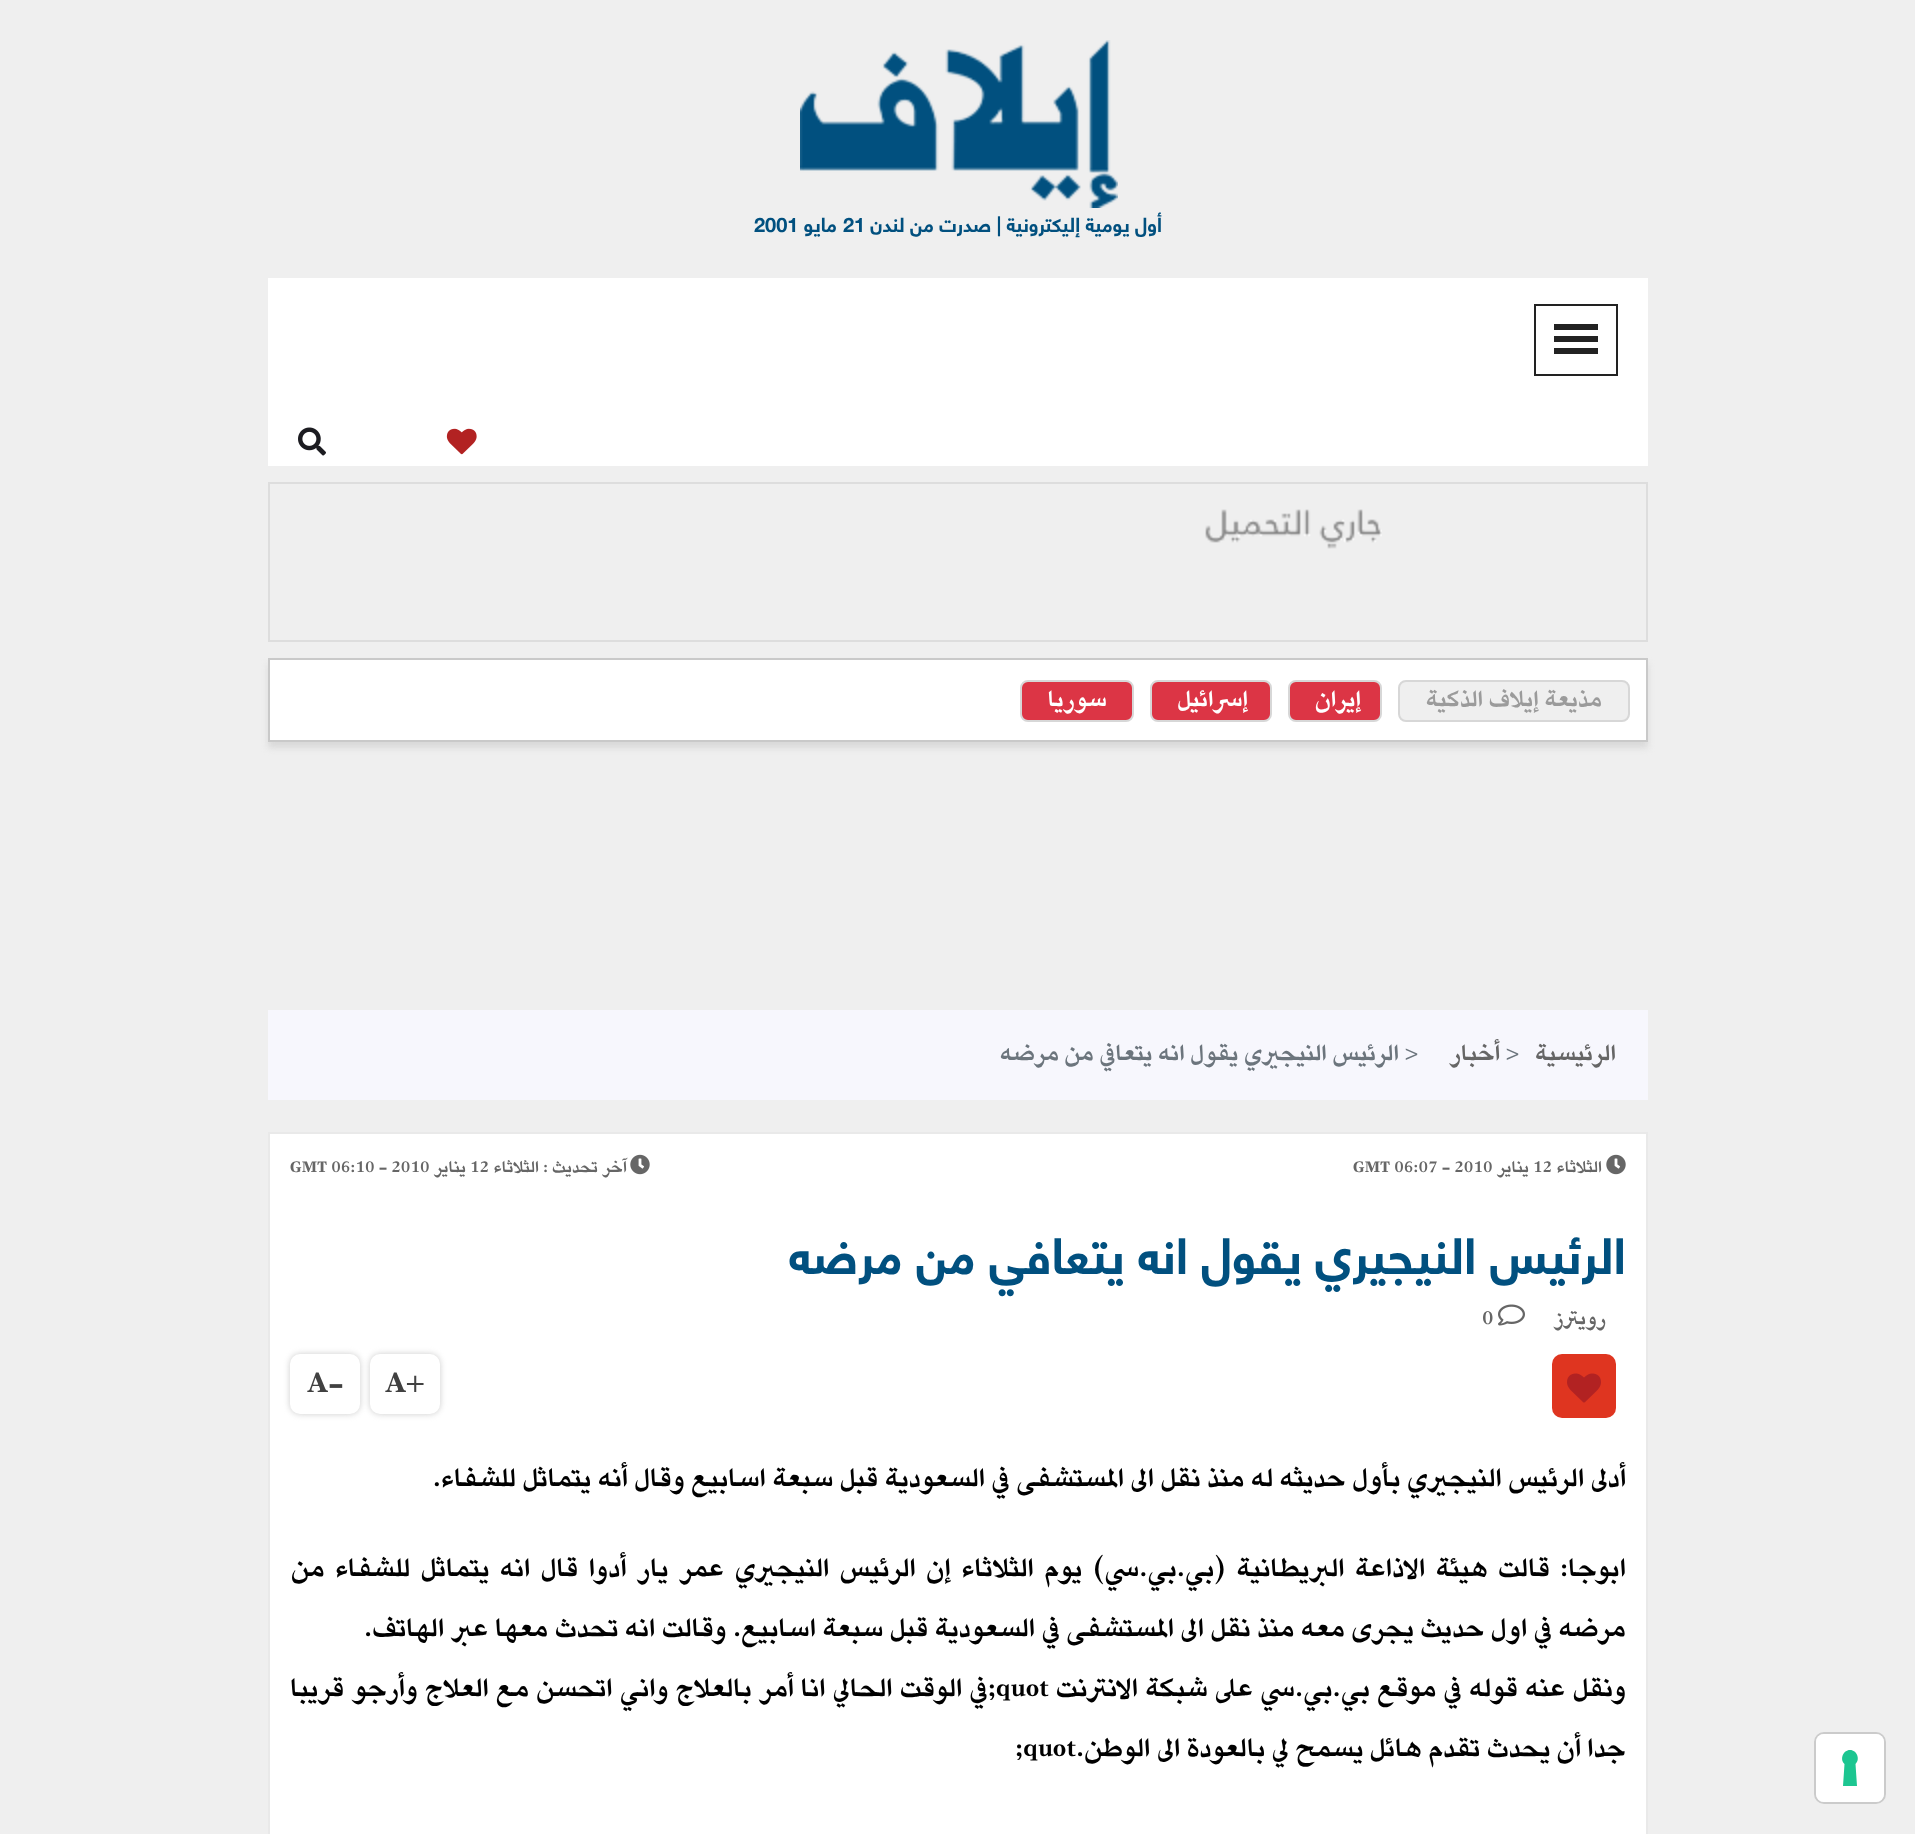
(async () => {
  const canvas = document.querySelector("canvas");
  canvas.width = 1915;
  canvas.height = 1834;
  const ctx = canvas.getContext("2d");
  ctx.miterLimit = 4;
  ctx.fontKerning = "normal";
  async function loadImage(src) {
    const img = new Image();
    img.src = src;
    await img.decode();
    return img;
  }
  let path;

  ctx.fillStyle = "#efefef";
  ctx.fillRect(0, 0, 1915, 1834);
  ctx.drawImage(await loadImage("img/1.png"), 800, 40, 318, 168);
  ctx.fillStyle = "#ffffff";
  ctx.fillRect(268, 278, 1380, 188);
  ctx.strokeStyle = "#222222";
  ctx.lineWidth = 2;
  ctx.strokeRect(1535, 305, 82, 70);
  for (const [x, y, w, h, color] of [
    [1554, 324, 44, 6, "#222222"],
    [1554, 336, 44, 6, "#222222"],
    [1554, 348, 44, 6, "#222222"],
  ]) {
    ctx.fillStyle = color;
    ctx.fillRect(x, y, w, h);
  }
  ctx.drawImage(await loadImage("img/2.png"), 446, 428, 31, 27);
  ctx.drawImage(await loadImage("img/3.png"), 298, 427, 28, 29);
  ctx.strokeStyle = "#dddddd";
  ctx.strokeRect(269, 483, 1378, 158);
  ctx.drawImage(await loadImage("img/4.png"), 1205, 509, 177, 40);
  ctx.fillStyle = "#d9d9d9";
  ctx.filter = "blur(3px)";
  ctx.beginPath();
  ctx.rect(268, 664, 1380, 84);
  ctx.fill();
  ctx.filter = "none";
  ctx.fillStyle = "#ffffff";
  ctx.beginPath();
  ctx.rect(269, 659, 1378, 82);
  ctx.fill();
  ctx.strokeStyle = "#c9c9c9";
  ctx.stroke();
  ctx.fillStyle = "#efefef";
  ctx.beginPath();
  ctx.roundRect(1399, 681, 230, 40, 7);
  ctx.fill();
  ctx.strokeStyle = "#d7d7d7";
  ctx.stroke();
  ctx.fillStyle = "#dc3545";
  ctx.beginPath();
  ctx.roundRect(1289, 681, 92, 40, 7);
  ctx.fill();
  ctx.stroke();
  ctx.beginPath();
  ctx.roundRect(1151, 681, 120, 40, 7);
  ctx.fill();
  ctx.stroke();
  ctx.beginPath();
  ctx.roundRect(1021, 681, 112, 40, 7);
  ctx.fill();
  ctx.stroke();
  ctx.beginPath();
  ctx.roundRect(1815, 1733, 70, 70, 9);
  ctx.strokeStyle = "#cbcbcb";
  ctx.stroke();
  ctx.fillStyle = "#ffffff";
  ctx.beginPath();
  ctx.roundRect(1816, 1734, 68, 68, 8);
  ctx.fill();
  ctx.fillStyle = "#1cc691";
  path = new Path2D("M1850 1750C1857 1750 1860.5 1759.5 1855.5 1764L1857 1786H1843L1844.5 1764C1839.5 1759.5 1843 1750 1850 1750Z");
  ctx.fill(path, "evenodd");
  ctx.fillStyle = "#f7f7fd";
  ctx.fillRect(268, 1010, 1380, 90);
  ctx.fillStyle = "#ffffff";
  ctx.beginPath();
  ctx.rect(269, 1133, 1378, 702);
  ctx.fill();
  ctx.strokeStyle = "#e9e9e9";
  ctx.stroke();
  ctx.drawImage(await loadImage("img/5.png"), 1606, 1154, 20, 21);
  ctx.drawImage(await loadImage("img/5.png"), 630, 1154, 20, 21);
  ctx.drawImage(await loadImage("img/6.png"), 1498, 1304, 27, 22);
  ctx.fillStyle = "#df3520";
  ctx.beginPath();
  ctx.roundRect(1552, 1354, 64, 64, 10);
  ctx.fill();
  ctx.drawImage(await loadImage("img/7.png"), 1567, 1373, 34, 30);
  ctx.fillStyle = "#cccccc";
  ctx.filter = "blur(3px)";
  ctx.beginPath();
  ctx.roundRect(370, 1354, 70, 60, 10);
  ctx.fill();
  ctx.filter = "none";
  ctx.fillStyle = "#ffffff";
  ctx.beginPath();
  ctx.roundRect(370, 1354, 70, 60, 10);
  ctx.fill();
  ctx.fillStyle = "#cccccc";
  ctx.filter = "blur(3px)";
  ctx.beginPath();
  ctx.roundRect(290, 1354, 70, 60, 10);
  ctx.fill();
  ctx.filter = "none";
  ctx.fillStyle = "#ffffff";
  ctx.beginPath();
  ctx.roundRect(290, 1354, 70, 60, 10);
  ctx.fill();
  ctx.direction = "rtl";
  ctx.font = "bold 20px 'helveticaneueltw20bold'";
  ctx.fillStyle = "#01507f";
  ctx.fillText("أول يومية إليكترونية | صدرت من لندن", 1162, 232);
  ctx.direction = "ltr";
  ctx.fillText("21", 843, 232);
  ctx.direction = "rtl";
  ctx.fillText("مايو", 837, 232);
  ctx.direction = "ltr";
  ctx.fillText("2001", 754, 232);
  ctx.direction = "rtl";
  ctx.font = "bold 28px 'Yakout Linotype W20'";
  ctx.fillStyle = "#9b9b9b";
  ctx.fillText("مذيعة إيلاف الذكية", 1602, 706);
  ctx.fillStyle = "#ffffff";
  for (const [text, x, y] of [
    ["إيران", 1361, 706],
    ["إسرائيل", 1248, 706],
    ["سوريا", 1107, 706],
  ]) {
    ctx.fillText(text, x, y);
  }
  ctx.fillStyle = "#666666";
  ctx.fillText("الرئيسية", 1616, 1060);
  ctx.direction = "ltr";
  ctx.font = "bold 26px 'Yakout Linotype W20'";
  ctx.fillStyle = "#6c757d";
  ctx.fillText(">", 1506, 1060);
  ctx.direction = "rtl";
  ctx.font = "bold 28px 'Yakout Linotype W20'";
  ctx.fillStyle = "#666666";
  ctx.fillText("أخبار", 1500, 1060);
  ctx.direction = "ltr";
  ctx.font = "bold 26px 'Yakout Linotype W20'";
  ctx.fillStyle = "#6c757d";
  ctx.fillText(">", 1405, 1060);
  ctx.direction = "rtl";
  ctx.font = "bold 28px 'Yakout Linotype W20'";
  ctx.fillText("الرئيس النيجيري يقول انه يتعافي من مرضه", 1399, 1060);
  ctx.font = "bold 20px 'Yakout Linotype W20'";
  ctx.fillStyle = "#666666";
  ctx.fillText("الثلاثاء", 1602, 1172);
  ctx.direction = "ltr";
  ctx.fillText("12", 1533, 1172);
  ctx.direction = "rtl";
  ctx.fillText("يناير", 1529, 1172);
  ctx.direction = "ltr";
  ctx.fillText("GMT 06:07 - 2010", 1353, 1172);
  ctx.direction = "rtl";
  ctx.fillText("آخر تحديث :", 627, 1172);
  ctx.fillText("الثلاثاء", 539, 1172);
  ctx.direction = "ltr";
  ctx.fillText("12", 470, 1172);
  ctx.direction = "rtl";
  ctx.fillText("يناير", 466, 1172);
  ctx.direction = "ltr";
  ctx.fillText("GMT 06:10 - 2010", 290, 1172);
  ctx.direction = "rtl";
  ctx.font = "bold 50px 'helveticaneueltw20bold'";
  ctx.fillStyle = "#01507f";
  ctx.fillText("الرئيس النيجيري يقول انه يتعافي من مرضه", 1626, 1274);
  ctx.font = "bold 24px 'Yakout Linotype W20'";
  ctx.fillStyle = "#666666";
  ctx.fillText("رويترز", 1606, 1324);
  ctx.direction = "ltr";
  ctx.fillText("0", 1482, 1324);
  ctx.font = "bold 36px 'Yakout Linotype W20'";
  ctx.fillStyle = "#414141";
  ctx.fillText("A+", 385, 1392);
  ctx.fillText("A-", 307, 1392);
  ctx.direction = "rtl";
  ctx.font = "bold 32px 'Yakout Linotype W20'";
  ctx.fillStyle = "#000000";
  ctx.fillText("أدلى الرئيس النيجيري بأول حديثه له منذ نقل الى المستشفى في السعودية قبل سبعة اسابيع وقال أنه يتماثل للشفاء.", 1626, 1486);
  ctx.fillText("ابوجا:", 1626, 1576);
  ctx.wordSpacing = "4px";
  ctx.fillText("قالت هيئة الاذاعة البريطانية (بي.بي.سي) يوم الثلاثاء إن الرئيس النيجيري عمر يار أدوا قال انه يتماثل للشفاء من", 1550, 1576);
  ctx.wordSpacing = "0px";
  ctx.fillText("مرضه في اول حديث يجرى معه منذ نقل الى المستشفى في السعودية قبل سبعة اسابيع. وقالت انه تحدث معها عبر الهاتف.", 1626, 1636);
  ctx.wordSpacing = "0.75px";
  ctx.fillText("ونقل عنه قوله في موقع بي.بي.سي على شبكة الانترنت", 1626, 1696);
  ctx.wordSpacing = "0px";
  ctx.direction = "ltr";
  ctx.fillText("quot", 996, 1696);
  ctx.wordSpacing = "0.75px";
  ctx.direction = "rtl";
  ctx.fillText(";في الوقت الحالي انا أمر بالعلاج واني اتحسن مع العلاج وأرجو قريبا", 996, 1696);
  ctx.wordSpacing = "0px";
  ctx.fillText("جدا أن يحدث تقدم هائل يسمح لي بالعودة الى الوطن.", 1626, 1756);
  ctx.direction = "ltr";
  ctx.fillText(";quot", 1015, 1756);
})();
